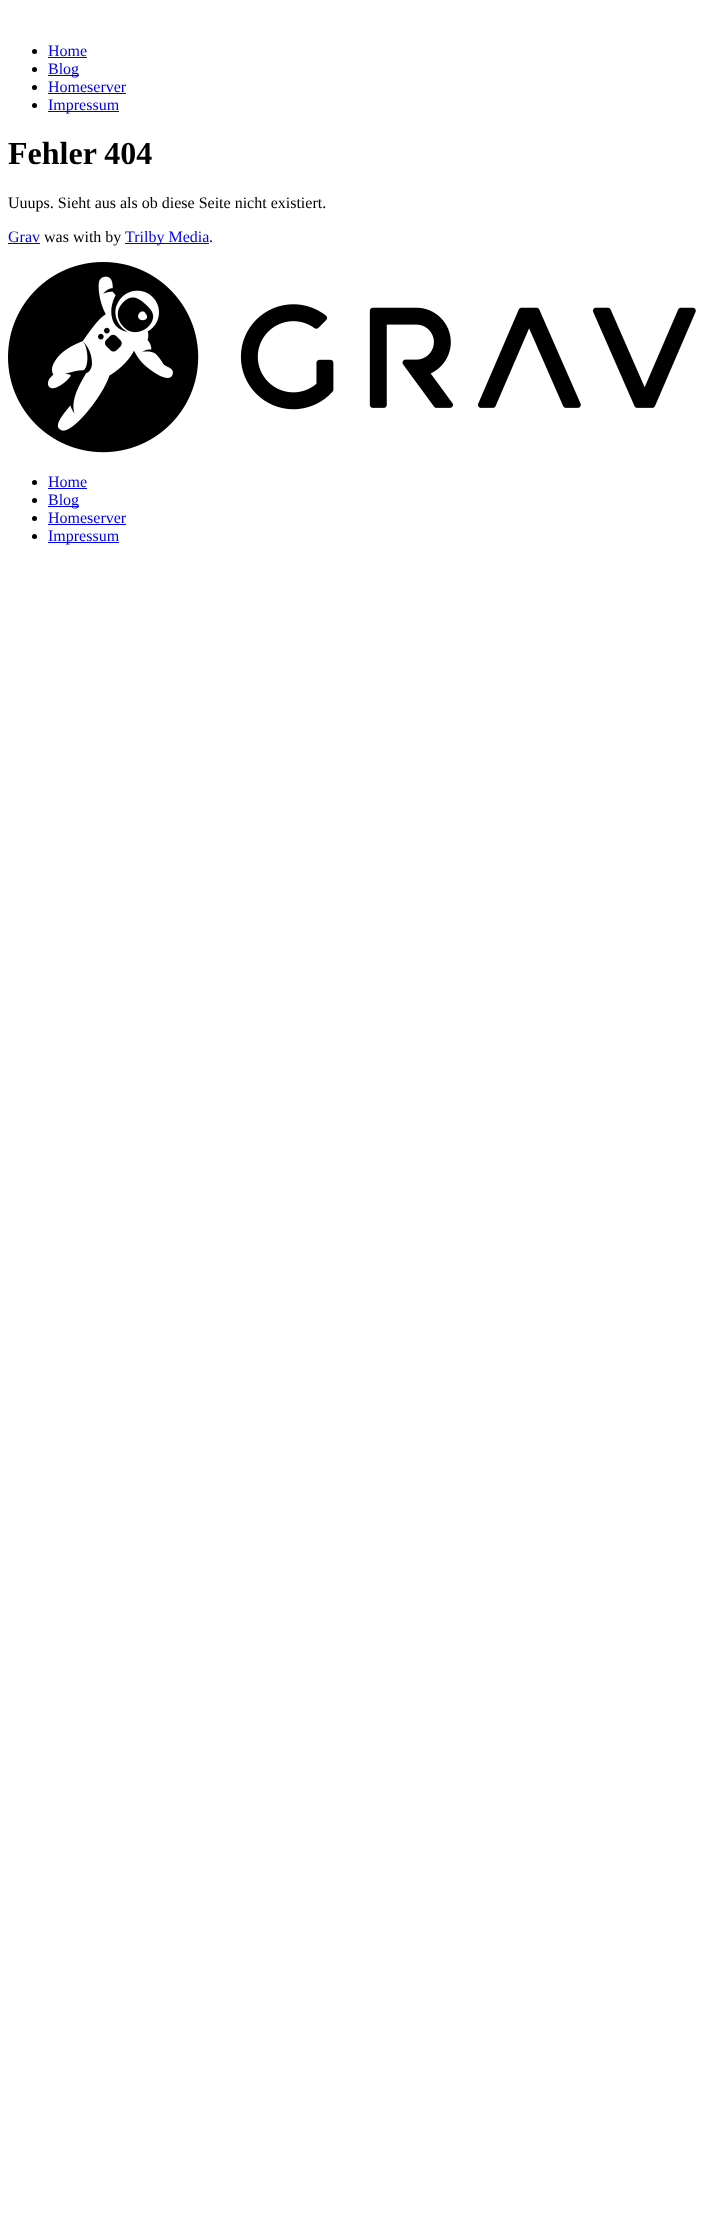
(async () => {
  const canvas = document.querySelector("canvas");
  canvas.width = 705;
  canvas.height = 2220;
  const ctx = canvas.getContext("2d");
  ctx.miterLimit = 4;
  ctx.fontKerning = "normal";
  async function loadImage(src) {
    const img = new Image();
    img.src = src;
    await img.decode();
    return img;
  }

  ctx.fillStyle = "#ffffff";
  ctx.fillRect(0, 0, 705, 2220);
  ctx.fillStyle = "#000000";
  ctx.beginPath();
  ctx.arc(34.5, 51.5, 2.5, 0, Math.PI * 2);
  ctx.fill();
  ctx.fillStyle = "#0000ee";
  ctx.fillRect(48, 57, 39, 1);
  ctx.fillStyle = "#000000";
  ctx.beginPath();
  ctx.arc(34.5, 69.5, 2.5, 0, Math.PI * 2);
  ctx.fill();
  ctx.fillStyle = "#0000ee";
  ctx.fillRect(48, 75, 31, 1);
  ctx.fillStyle = "#000000";
  ctx.beginPath();
  ctx.arc(34.5, 87.5, 2.5, 0, Math.PI * 2);
  ctx.fill();
  ctx.fillStyle = "#0000ee";
  ctx.fillRect(48, 93, 78, 1);
  ctx.fillStyle = "#000000";
  ctx.beginPath();
  ctx.arc(34.5, 105.5, 2.5, 0, Math.PI * 2);
  ctx.fill();
  for (const [x, y, w, h, color] of [
    [48, 111, 71, 1, "#0000ee"],
    [8, 243, 32, 1, "#0000ee"],
    [125, 243, 84, 1, "#0000ee"],
  ]) {
    ctx.fillStyle = color;
    ctx.fillRect(x, y, w, h);
  }
  ctx.drawImage(await loadImage("img/1.png"), 8, 262, 688, 191);
  ctx.fillStyle = "#000000";
  ctx.beginPath();
  ctx.arc(34.5, 482.5, 2.5, 0, Math.PI * 2);
  ctx.fill();
  ctx.fillStyle = "#0000ee";
  ctx.fillRect(48, 488, 39, 1);
  ctx.fillStyle = "#000000";
  ctx.beginPath();
  ctx.arc(34.5, 500.5, 2.5, 0, Math.PI * 2);
  ctx.fill();
  ctx.fillStyle = "#0000ee";
  ctx.fillRect(48, 506, 31, 1);
  ctx.fillStyle = "#000000";
  ctx.beginPath();
  ctx.arc(34.5, 518.5, 2.5, 0, Math.PI * 2);
  ctx.fill();
  ctx.fillStyle = "#0000ee";
  ctx.fillRect(48, 524, 78, 1);
  ctx.fillStyle = "#000000";
  ctx.beginPath();
  ctx.arc(34.5, 536.5, 2.5, 0, Math.PI * 2);
  ctx.fill();
  ctx.fillStyle = "#0000ee";
  ctx.fillRect(48, 542, 71, 1);
  ctx.font = "16px Liberation Serif";
  for (const [text, x, y] of [
    ["Home", 48, 56],
    ["Blog", 48, 74],
    ["Homeserver", 48, 92],
    ["Impressum", 48, 110],
  ]) {
    ctx.fillText(text, x, y);
  }
  ctx.font = "bold 32px Liberation Serif";
  ctx.fillStyle = "#000000";
  ctx.fillText("Fehler 404", 8, 164);
  ctx.font = "16px Liberation Serif";
  ctx.fillText("Uuups. Sieht aus als ob diese Seite nicht existiert.", 8, 208);
  ctx.fillStyle = "#0000ee";
  ctx.fillText("Grav", 8, 242);
  ctx.fillStyle = "#000000";
  ctx.fillText("was with by", 44, 242);
  ctx.fillStyle = "#0000ee";
  ctx.fillText("Trilby Media", 125, 242);
  ctx.fillStyle = "#000000";
  ctx.fillText(".", 209, 242);
  ctx.fillStyle = "#0000ee";
  for (const [text, x, y] of [
    ["Home", 48, 487],
    ["Blog", 48, 505],
    ["Homeserver", 48, 523],
    ["Impressum", 48, 541],
  ]) {
    ctx.fillText(text, x, y);
  }
})();
